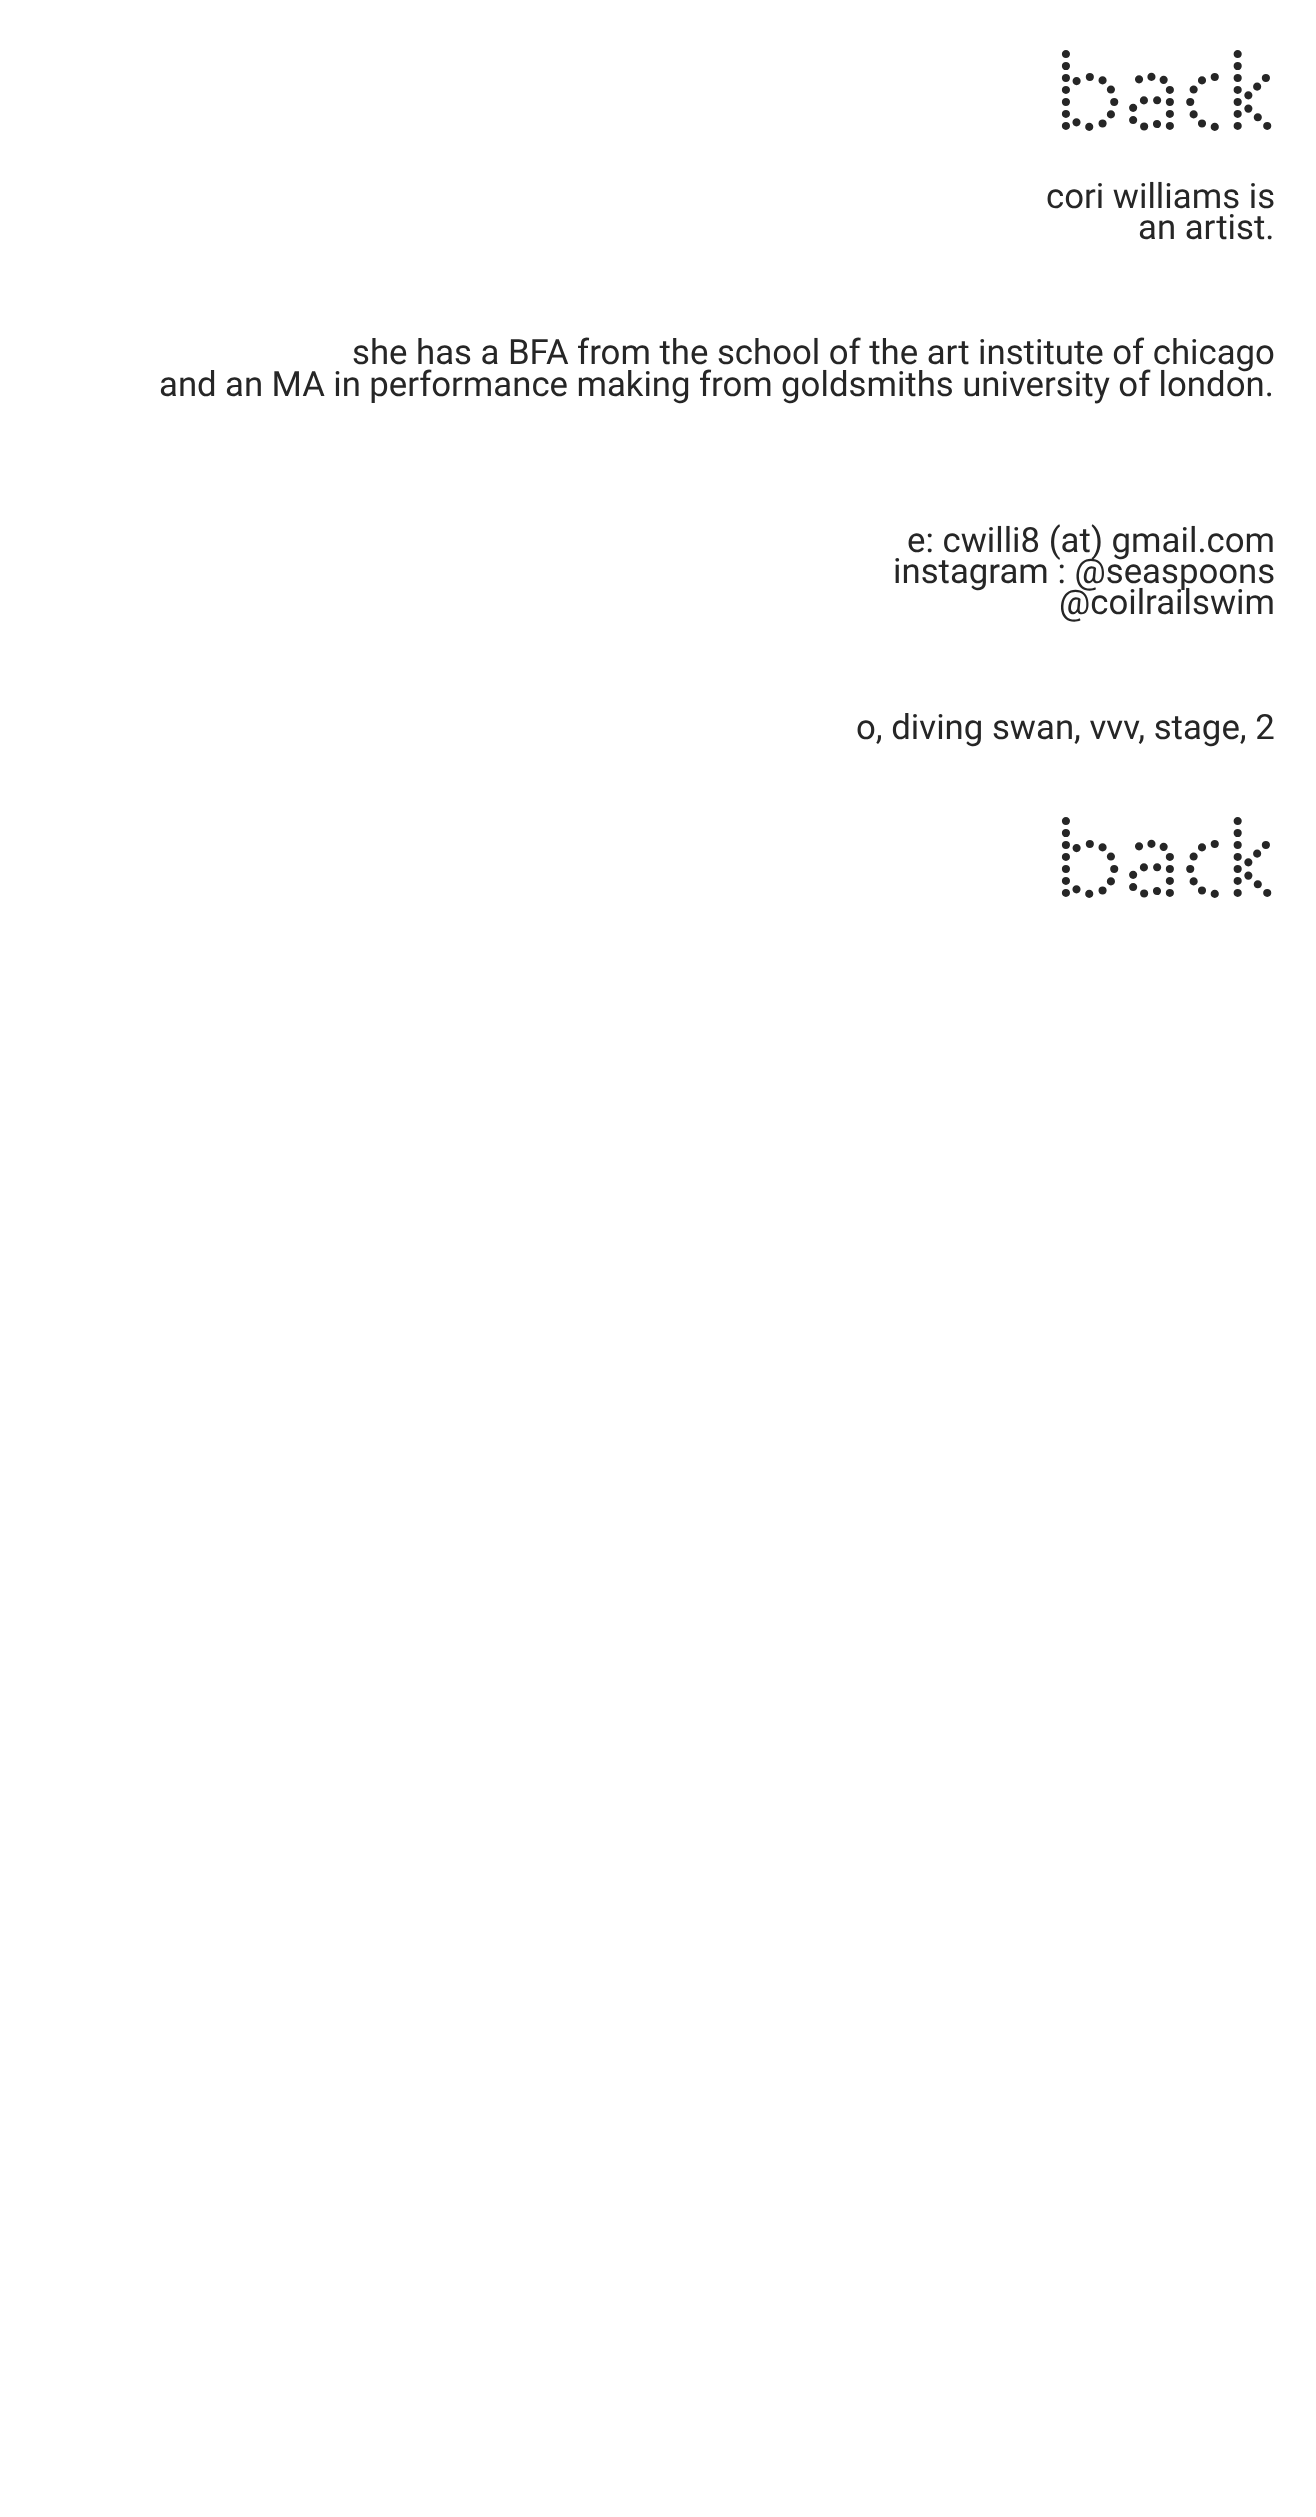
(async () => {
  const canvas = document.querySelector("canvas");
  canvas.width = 1316;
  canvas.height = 2517;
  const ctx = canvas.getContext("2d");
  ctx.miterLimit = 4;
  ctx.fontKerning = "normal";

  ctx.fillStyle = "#ffffff";
  ctx.fillRect(0, 0, 1316, 2517);
  ctx.font = "bold 111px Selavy";
  ctx.fillStyle = "#262626";
  ctx.fillText("back", 1052, 130);
  ctx.font = "34.75px Roboto";
  ctx.fillText("cori williams is", 1046, 208);
  ctx.fillText("an artist.", 1138, 239);
  ctx.wordSpacing = "-0.1px";
  ctx.fillText("she has a BFA from the school of the art institute of chicago", 352, 364);
  ctx.wordSpacing = "-0.25px";
  ctx.fillText("and an MA in performance making from goldsmiths university of london.", 159, 396);
  ctx.wordSpacing = "0px";
  for (const [text, x, y] of [
    ["e: cwilli8 (at) gmail.com", 907, 552],
    ["instagram : @seaspoons", 893, 583],
    ["@coilrailswim", 1059, 614],
    ["o, diving swan, vvv, stage, 2", 856, 739],
  ]) {
    ctx.fillText(text, x, y);
  }
  ctx.font = "bold 111px Selavy";
  ctx.fillText("back", 1052, 897);
})();
